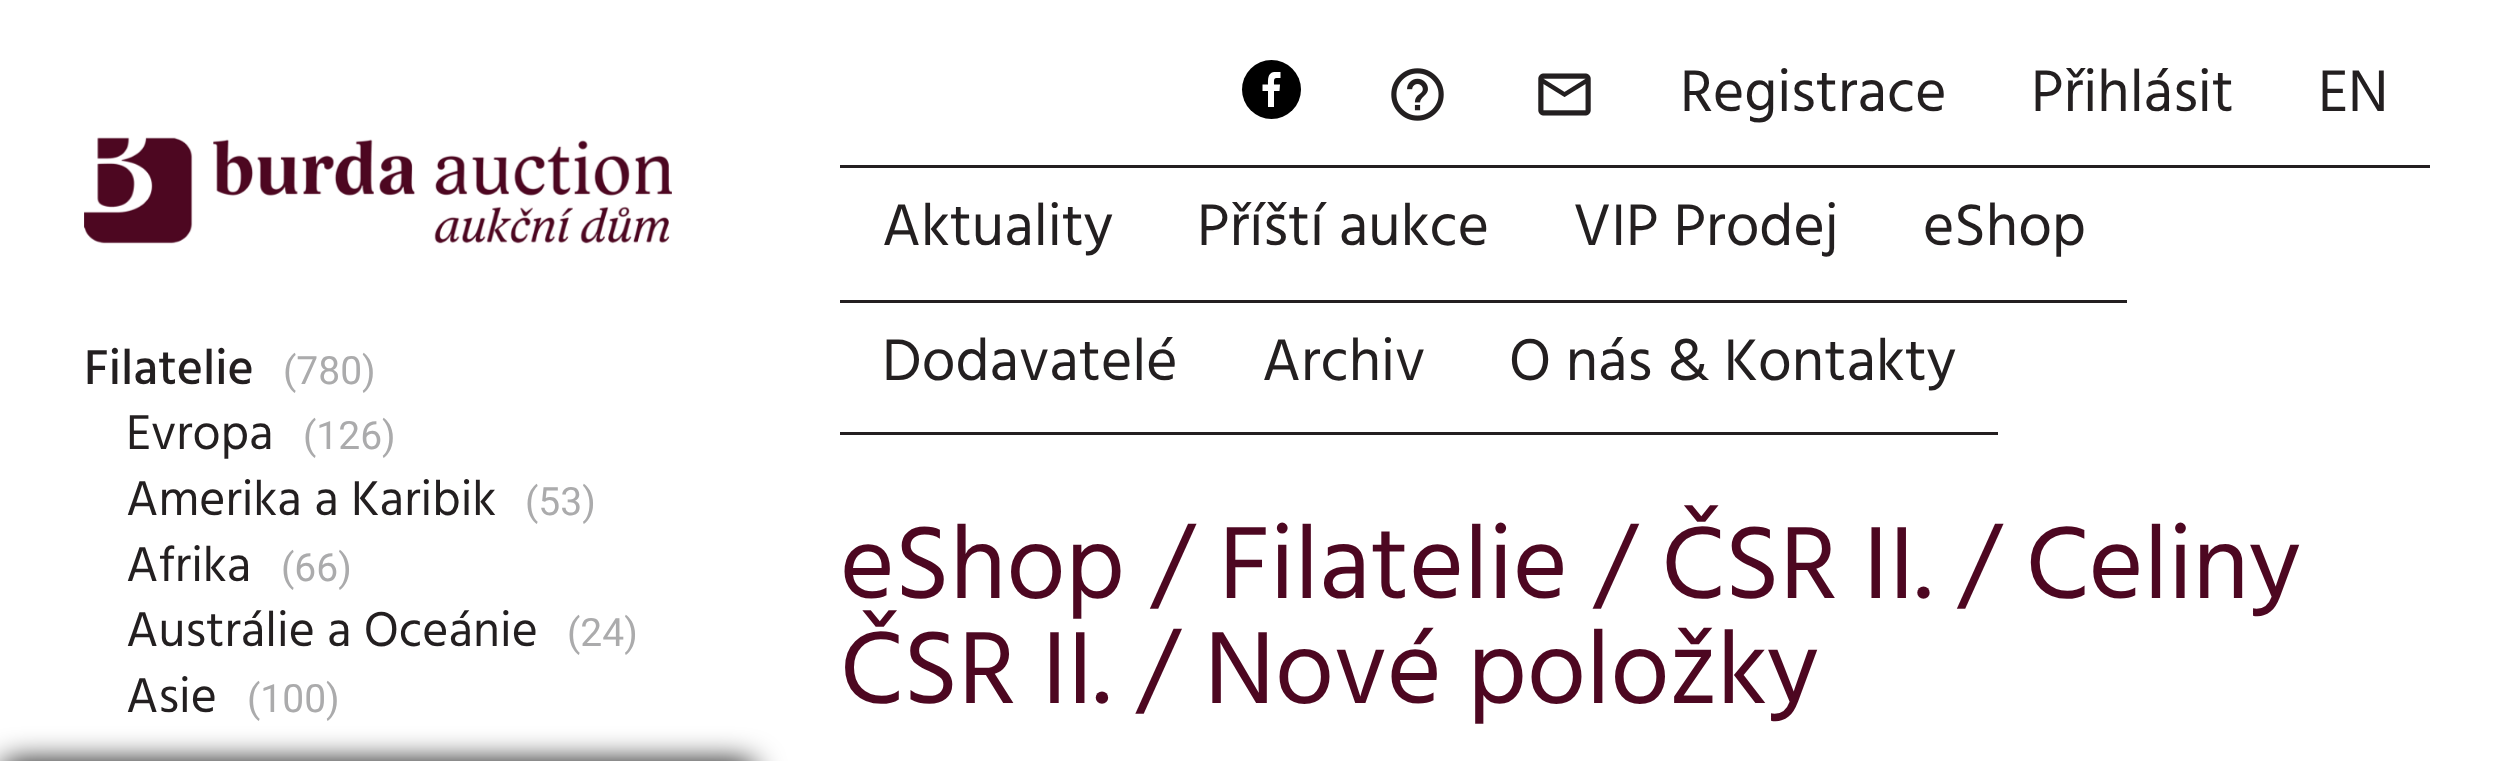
(async () => {
  const canvas = document.querySelector("canvas");
  canvas.width = 2514;
  canvas.height = 761;
  const ctx = canvas.getContext("2d");
  ctx.miterLimit = 4;
  ctx.fontKerning = "normal";
  async function loadImage(src) {
    const img = new Image();
    img.src = src;
    await img.decode();
    return img;
  }
  let path;

  ctx.fillStyle = "#ffffff";
  ctx.fillRect(0, 0, 2514, 761);
  ctx.drawImage(await loadImage("img/1.png"), 84, 137, 588, 107);
  ctx.fillStyle = "#000000";
  ctx.filter = "blur(15px)";
  ctx.beginPath();
  ctx.roundRect(0, 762, 756, 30, 15);
  ctx.fill();
  ctx.filter = "none";
  ctx.beginPath();
  ctx.arc(1271.5, 89.5, 29.5, 0, Math.PI * 2);
  ctx.fill();
  ctx.fillStyle = "#ffffff";
  path = new Path2D("M1274 107V91H1279.5L1280 84.5H1274C1274 78 1273.5 78 1280.5 78V72H1274C1267.5 73 1268 79.5 1268 84.5H1262.5V91H1268V107Z");
  ctx.fill(path);
  ctx.drawImage(await loadImage("img/2.png"), 1391, 68, 53, 53);
  ctx.drawImage(await loadImage("img/3.png"), 1538, 73, 53, 43);
  for (const [x, y, w, h, color] of [
    [840, 165, 1590, 3, "#231f20"],
    [840, 300, 1287, 3, "#231f20"],
    [840, 432, 1158, 3, "#231f20"],
  ]) {
    ctx.fillStyle = color;
    ctx.fillRect(x, y, w, h);
  }
  ctx.font = "500 50px Hind";
  ctx.fillText("Filatelie", 84, 384);
  ctx.font = "39px Roboto";
  ctx.fillStyle = "#ababac";
  ctx.fillText("(780)", 283, 384);
  ctx.font = "50px Hind";
  ctx.fillStyle = "#231f20";
  ctx.fillText("Evropa", 126, 449);
  ctx.font = "39px Roboto";
  ctx.fillStyle = "#ababac";
  ctx.fillText("(126)", 303, 449);
  ctx.font = "50px Hind";
  ctx.fillStyle = "#231f20";
  ctx.fillText("Amerika a Karibik", 126, 515);
  ctx.font = "39px Roboto";
  ctx.fillStyle = "#ababac";
  ctx.fillText("(53)", 525, 515);
  ctx.font = "50px Hind";
  ctx.fillStyle = "#231f20";
  ctx.fillText("Afrika", 126, 581);
  ctx.font = "39px Roboto";
  ctx.fillStyle = "#ababac";
  ctx.fillText("(66)", 281, 581);
  ctx.font = "50px Hind";
  ctx.fillStyle = "#231f20";
  ctx.fillText("Austrálie a Oceánie", 126, 646);
  ctx.font = "39px Roboto";
  ctx.fillStyle = "#ababac";
  ctx.fillText("(24)", 567, 646);
  ctx.font = "50px Hind";
  ctx.fillStyle = "#231f20";
  ctx.fillText("Asie", 126, 712);
  ctx.font = "39px Roboto";
  ctx.fillStyle = "#ababac";
  ctx.fillText("(100)", 247, 712);
  ctx.font = "60px Hind";
  ctx.fillStyle = "#231f20";
  for (const [text, x, y] of [
    ["Registrace", 1680, 111],
    ["Přihlásit", 2031, 111],
    ["EN", 2318, 111],
    ["Aktuality", 882, 245],
    ["Příští aukce", 1197, 245],
    ["VIP Prodej", 1573, 245],
    ["eShop", 1923, 245],
    ["Dodavatelé", 882, 380],
    ["Archiv", 1262, 380],
    ["O nás & Kontakty", 1509, 380],
  ]) {
    ctx.fillText(text, x, y);
  }
  ctx.font = "105px Hind";
  ctx.fillStyle = "#4d0721";
  ctx.fillText("eShop / Filatelie / ČSR II. / Celiny", 840, 598);
  ctx.fillText("ČSR II. / Nové položky", 840, 703);
})();
